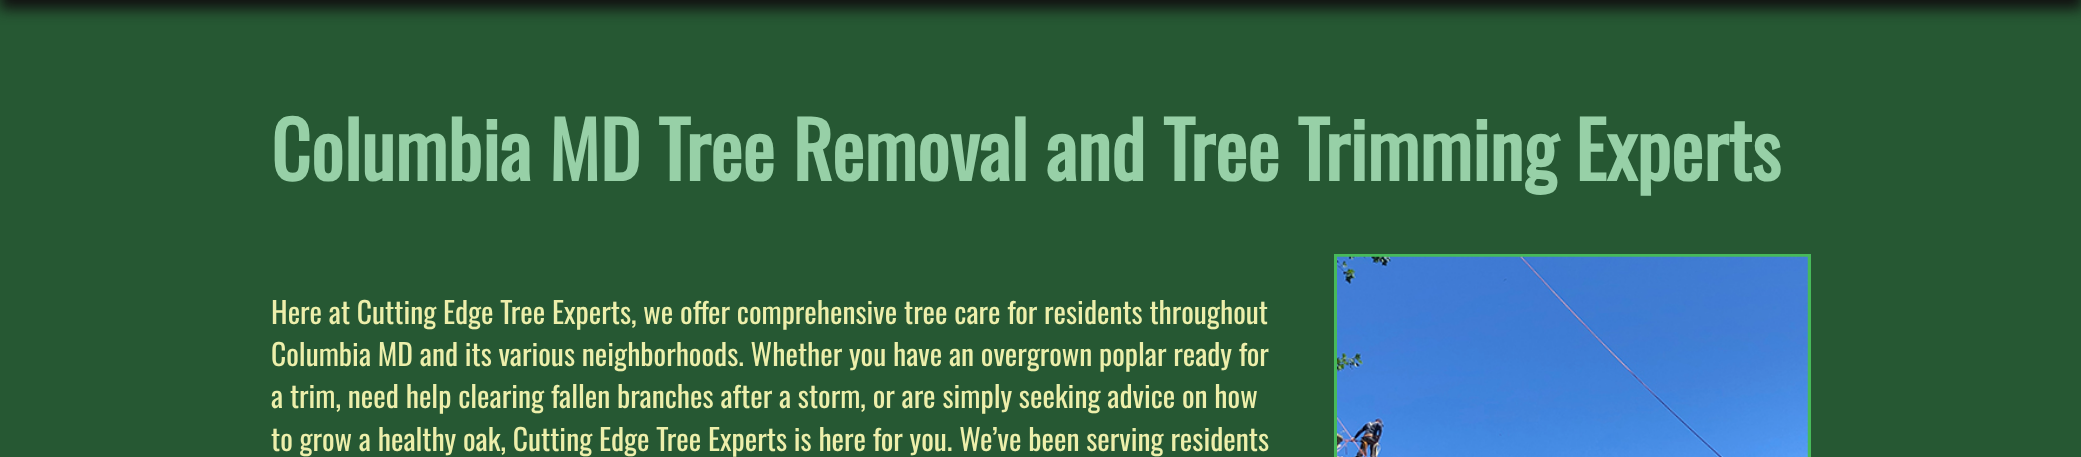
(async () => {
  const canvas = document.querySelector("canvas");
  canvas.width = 2081;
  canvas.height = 457;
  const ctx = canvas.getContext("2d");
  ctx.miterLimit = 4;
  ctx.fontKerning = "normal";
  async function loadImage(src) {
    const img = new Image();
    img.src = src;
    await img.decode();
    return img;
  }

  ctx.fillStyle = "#265833";
  ctx.fillRect(0, 0, 2081, 457);
  ctx.fillStyle = "#111111";
  ctx.filter = "blur(7px)";
  ctx.beginPath();
  ctx.rect(0, -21, 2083, 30);
  ctx.fill();
  ctx.filter = "none";
  ctx.strokeStyle = "#47b95a";
  ctx.lineWidth = 4;
  ctx.strokeRect(1336, 256, 473, 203);
  ctx.drawImage(await loadImage("img/1.png"), 1337, 256, 471, 201);
  ctx.font = "bold 77.1px Oswald";
  ctx.fillStyle = "#97d0a7";
  ctx.fillText("Columbia MD Tree Removal and Tree Trimming Experts", 271, 181);
  ctx.font = "29.65px Oswald";
  ctx.fillStyle = "#edefab";
  for (const [text, x, y] of [
    ["Here at Cutting Edge Tree Experts, we offer comprehensive tree care for residents throughout", 271, 324],
    ["Columbia MD and its various neighborhoods. Whether you have an overgrown poplar ready for", 271, 366],
    ["a trim, need help clearing fallen branches after a storm, or are simply seeking advice on how", 271, 408],
    ["to grow a healthy oak, Cutting Edge Tree Experts is here for you. We’ve been serving residents", 271, 451],
  ]) {
    ctx.fillText(text, x, y);
  }
})();
